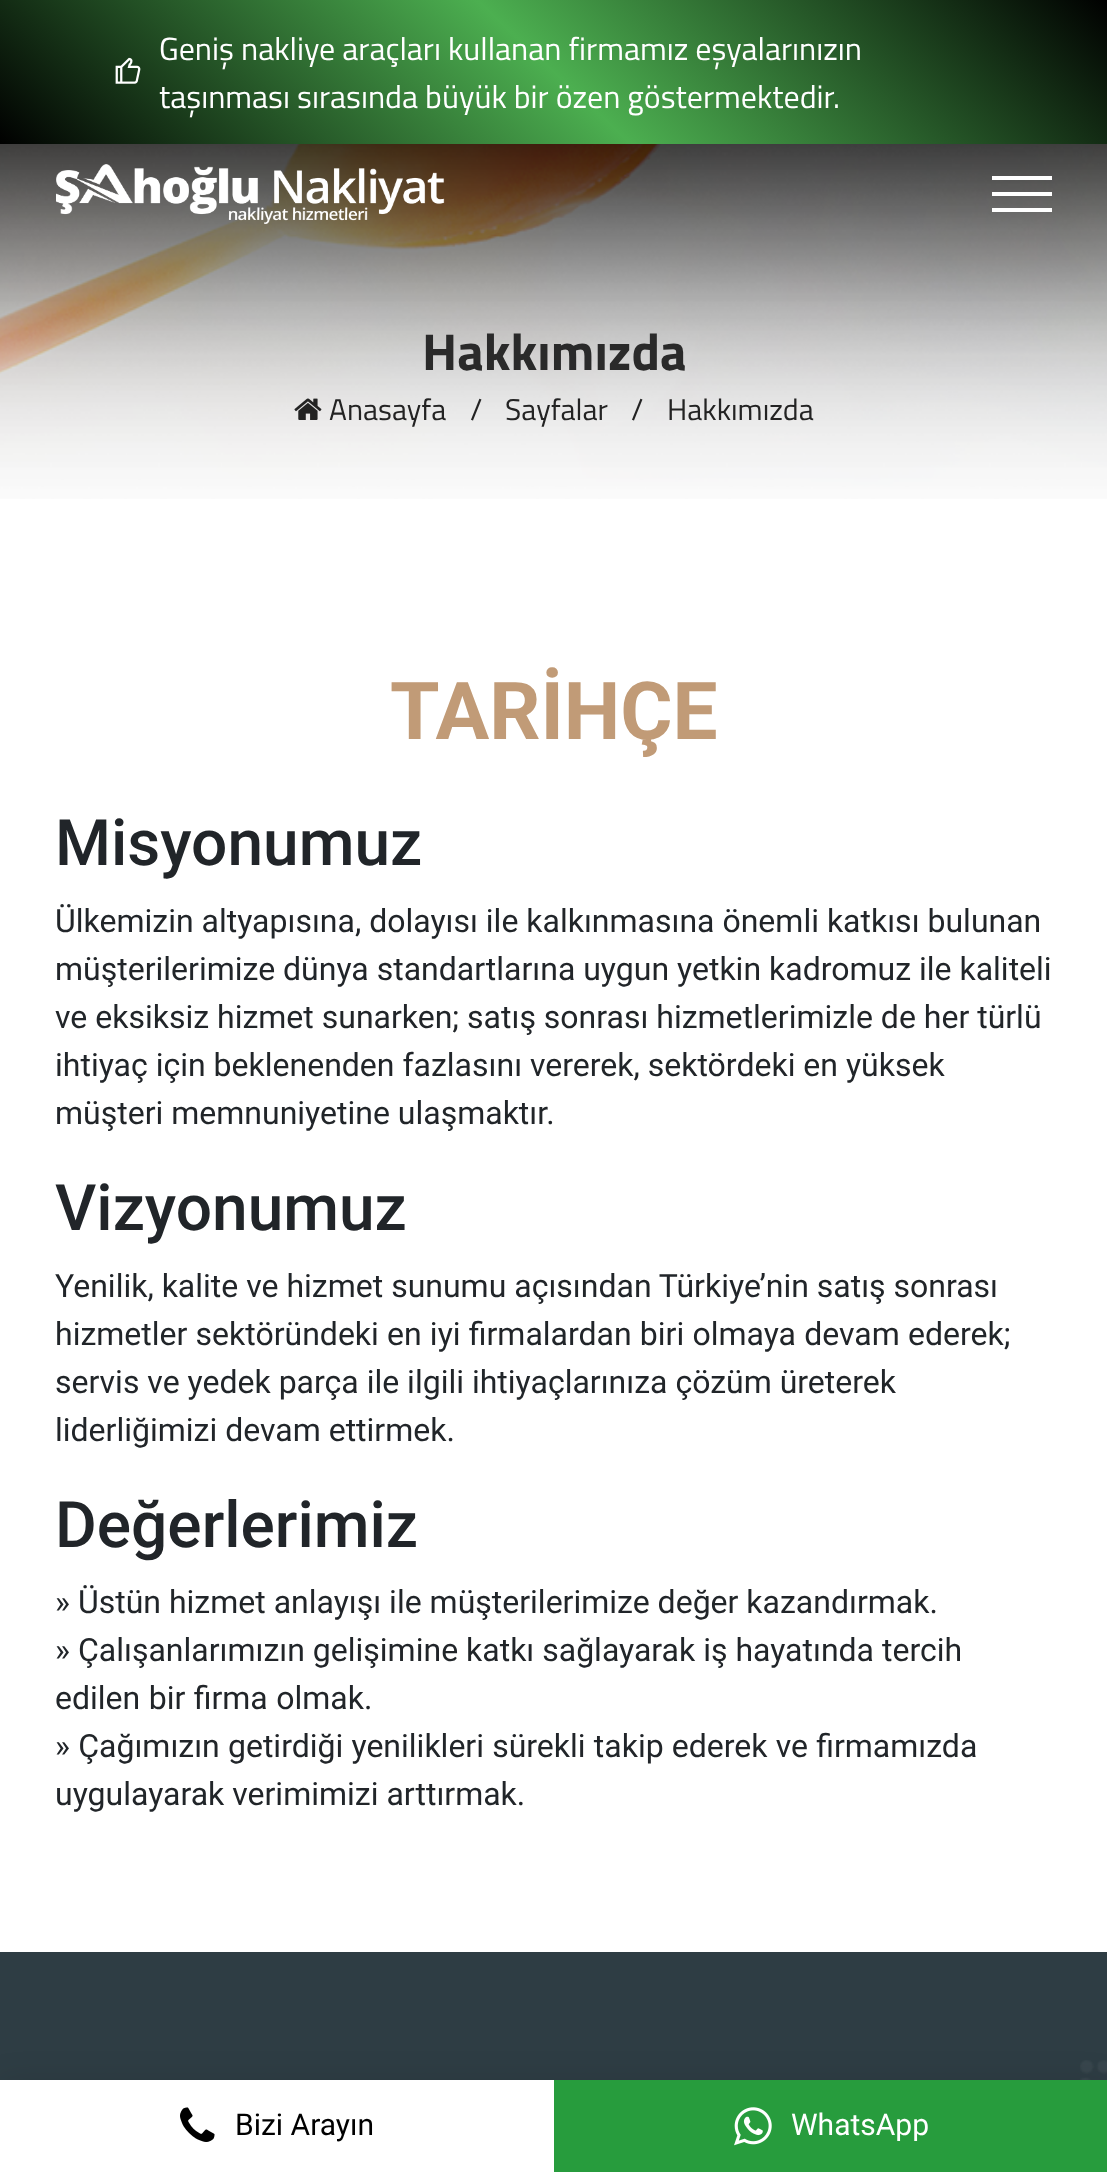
(async () => {
  const canvas = document.querySelector("canvas");
  canvas.width = 1107;
  canvas.height = 2172;
  const ctx = canvas.getContext("2d");
  ctx.miterLimit = 4;
  ctx.fontKerning = "normal";
  async function loadImage(src) {
    const img = new Image();
    img.src = src;
    await img.decode();
    return img;
  }
  let gradient;

  ctx.fillStyle = "#ffffff";
  ctx.fillRect(0, 0, 1107, 2172);
  gradient = ctx.createLinearGradient(260, 387, 848, -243);
  gradient.addColorStop(0, "#000000");
  gradient.addColorStop(0.5, "#4caf50");
  gradient.addColorStop(1, "#000000");
  ctx.fillStyle = gradient;
  ctx.fillRect(0, 0, 1107, 144);
  ctx.drawImage(await loadImage("img/1.png"), 115, 57, 26, 27);
  ctx.drawImage(await loadImage("img/3.png"), 0, 144, 1107, 355);
  ctx.drawImage(await loadImage("img/2.png"), 56, 164, 389, 60);
  for (const [x, y, w, h, color] of [
    [992, 176, 60, 4, "#ffffff"],
    [992, 192, 60, 4, "#ffffff"],
    [992, 208, 60, 4, "#ffffff"],
  ]) {
    ctx.fillStyle = color;
    ctx.fillRect(x, y, w, h);
  }
  ctx.drawImage(await loadImage("img/4.png"), 294, 398, 28, 22);
  ctx.fillStyle = "#2e3d44";
  ctx.fillRect(0, 1952, 1107, 128);
  ctx.drawImage(await loadImage("img/5.png"), 1080, 2060, 27, 20);
  ctx.fillStyle = "rgba(0, 0, 0, 0.1)";
  ctx.filter = "blur(15px)";
  ctx.beginPath();
  ctx.rect(0, 2080, 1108, 92);
  ctx.fill();
  ctx.filter = "none";
  ctx.fillStyle = "#ffffff";
  ctx.fillRect(0, 2080, 554, 92);
  ctx.drawImage(await loadImage("img/6.png"), 180, 2107, 35, 35);
  ctx.fillStyle = "#279c3d";
  ctx.fillRect(554, 2080, 553, 92);
  ctx.drawImage(await loadImage("img/7.png"), 734, 2107, 38, 39);
  ctx.font = "32px Titillium Web";
  ctx.fillStyle = "#ffffff";
  ctx.fillText("Geniş nakliye araçları kullanan firmamız eşyalarınızın", 159, 60);
  ctx.fillText("taşınması sırasında büyük bir özen göstermektedir.", 159, 108);
  ctx.font = "bold 52px Titillium Web";
  ctx.fillStyle = "#2a2a2a";
  ctx.fillText("Hakkımızda", 422, 370);
  ctx.font = "30px Titillium Web";
  ctx.fillStyle = "#232323";
  for (const [text, x, y] of [
    ["Anasayfa", 329, 420],
    ["/", 470, 420],
    ["Sayfalar", 505, 420],
    ["/", 631, 420],
    ["Hakkımızda", 667, 420],
  ]) {
    ctx.fillText(text, x, y);
  }
  ctx.font = "bold 80px Roboto";
  ctx.fillStyle = "#c19b77";
  ctx.fillText("TARİHÇE", 390, 739);
  ctx.font = "500 64px Roboto";
  ctx.fillStyle = "#212529";
  ctx.fillText("Misyonumuz", 55, 865);
  ctx.font = "32px Roboto";
  for (const [text, x, y] of [
    ["Ülkemizin altyapısına, dolayısı ile kalkınmasına önemli katkısı bulunan", 55, 932],
    ["müşterilerimize dünya standartlarına uygun yetkin kadromuz ile kaliteli", 55, 980],
    ["ve eksiksiz hizmet sunarken; satış sonrası hizmetlerimizle de her türlü", 55, 1028],
    ["ihtiyaç için beklenenden fazlasını vererek, sektördeki en yüksek", 55, 1076],
    ["müşteri memnuniyetine ulaşmaktır.", 55, 1124],
  ]) {
    ctx.fillText(text, x, y);
  }
  ctx.font = "500 64px Roboto";
  ctx.fillText("Vizyonumuz", 55, 1230);
  ctx.font = "32px Roboto";
  ctx.fillText("Yenilik, kalite ve hizmet sunumu açısından Türkiye’nin satış sonrası", 55, 1297);
  ctx.wordSpacing = "0.25px";
  ctx.fillText("hizmetler sektöründeki en iyi firmalardan biri olmaya devam ederek;", 55, 1345);
  ctx.wordSpacing = "0px";
  ctx.fillText("servis ve yedek parça ile ilgili ihtiyaçlarınıza çözüm üreterek", 55, 1393);
  ctx.fillText("liderliğimizi devam ettirmek.", 55, 1441);
  ctx.font = "500 64px Roboto";
  ctx.fillText("Değerlerimiz", 55, 1547);
  ctx.font = "32px Roboto";
  ctx.fillText("» Üstün hizmet anlayışı ile müşterilerimize değer kazandırmak.", 55, 1613);
  ctx.fillText("» Çalışanlarımızın gelişimine katkı sağlayarak iş hayatında tercih", 55, 1661);
  ctx.wordSpacing = "0.5px";
  ctx.fillText("edilen bir firma olmak.", 55, 1709);
  ctx.wordSpacing = "0.25px";
  ctx.fillText("» Çağımızın getirdiği yenilikleri sürekli takip ederek ve firmamızda", 55, 1757);
  ctx.wordSpacing = "0px";
  ctx.fillText("uygulayarak verimimizi arttırmak.", 55, 1805);
  ctx.font = "30px Roboto";
  ctx.fillStyle = "#000000";
  ctx.fillText("Bizi Arayın", 235, 2135);
  ctx.fillStyle = "#ffffff";
  ctx.fillText("WhatsApp", 791, 2135);
})();
